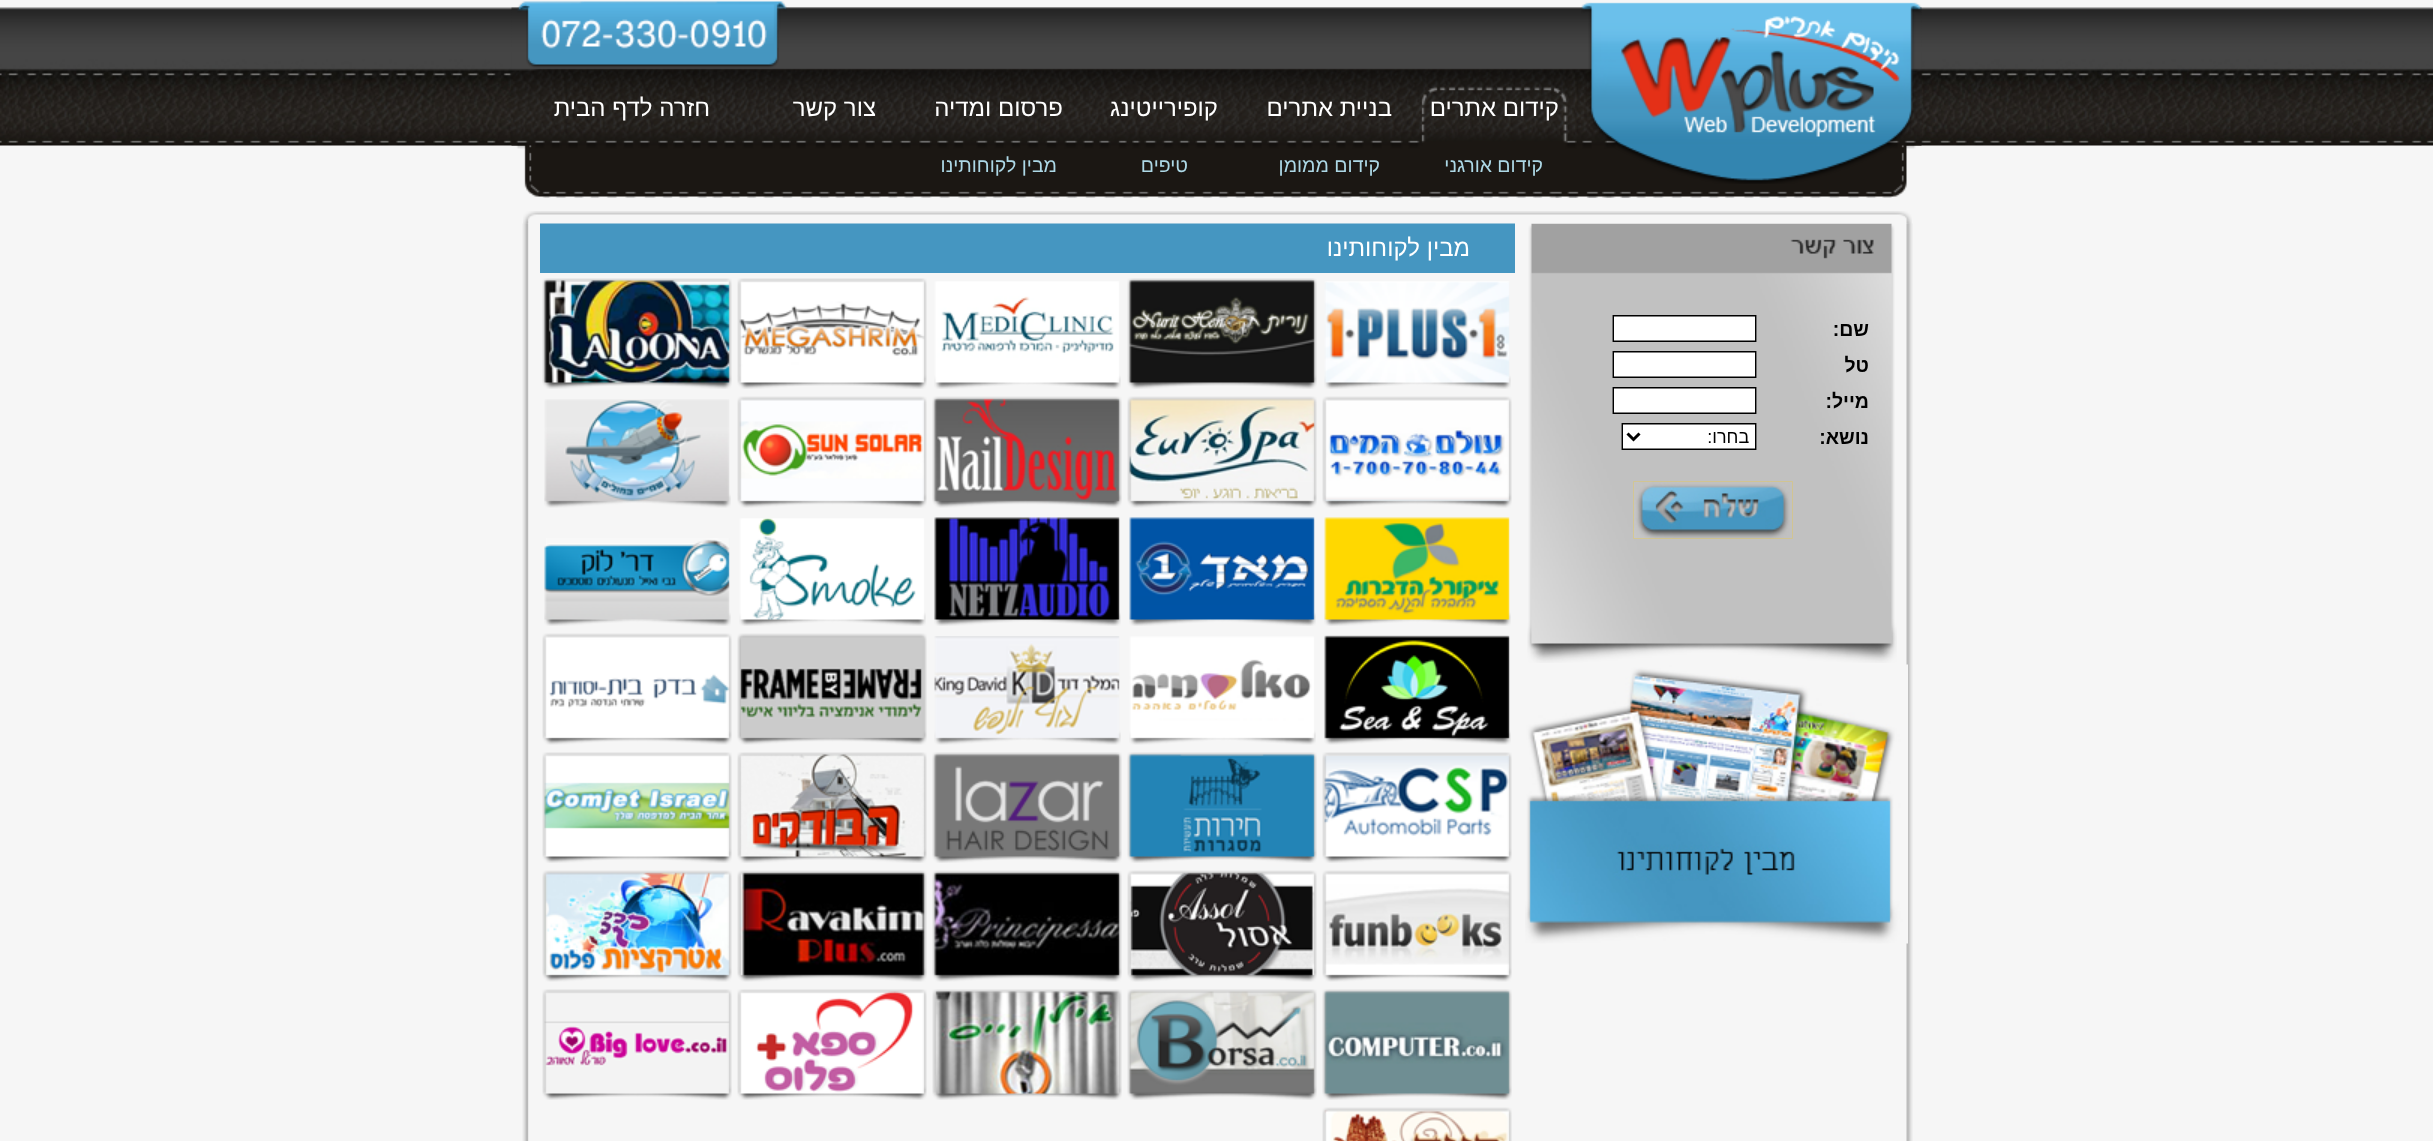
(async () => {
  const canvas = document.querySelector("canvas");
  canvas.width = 2433;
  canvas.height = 1141;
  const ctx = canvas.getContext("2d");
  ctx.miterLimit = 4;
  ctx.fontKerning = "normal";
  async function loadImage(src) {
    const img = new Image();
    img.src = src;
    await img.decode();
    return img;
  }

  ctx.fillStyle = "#f6f6f6";
  ctx.fillRect(0, 0, 2433, 1141);
  ctx.drawImage(await loadImage("img/1.png"), 0, 7, 2433, 139);
  ctx.drawImage(await loadImage("img/2.png"), 511, 7, 1411, 191);
  ctx.drawImage(await loadImage("img/3.png"), 1581, 2, 341, 182);
  ctx.drawImage(await loadImage("img/4.png"), 517, 1, 270, 67);
  ctx.drawImage(await loadImage("img/6.png"), 522, 223, 1391, 918);
  ctx.drawImage(await loadImage("img/7.png"), 1527, 223, 370, 440);
  ctx.fillStyle = "#4596c1";
  ctx.fillRect(540, 223, 975, 50);
  ctx.drawImage(await loadImage("img/5.png"), 523, 211, 1389, 13);
  ctx.drawImage(await loadImage("img/8.png"), 1612, 315, 257, 224);
  ctx.drawImage(await loadImage("img/9.png"), 1525, 664, 383, 280);
  ctx.drawImage(await loadImage("img/10.png"), 1324, 281, 187, 108);
  ctx.drawImage(await loadImage("img/11.png"), 1127, 278, 190, 111);
  ctx.drawImage(await loadImage("img/12.png"), 934, 281, 187, 108);
  ctx.drawImage(await loadImage("img/13.png"), 737, 278, 190, 111);
  ctx.drawImage(await loadImage("img/14.png"), 542, 278, 190, 111);
  ctx.drawImage(await loadImage("img/15.png"), 1322, 396, 190, 112);
  ctx.drawImage(await loadImage("img/16.png"), 1127, 396, 190, 112);
  ctx.drawImage(await loadImage("img/17.png"), 932, 396, 190, 112);
  ctx.drawImage(await loadImage("img/18.png"), 737, 396, 190, 112);
  ctx.drawImage(await loadImage("img/19.png"), 544, 399, 187, 109);
  ctx.drawImage(await loadImage("img/20.png"), 1324, 517, 187, 109);
  ctx.drawImage(await loadImage("img/21.png"), 1129, 517, 187, 109);
  ctx.drawImage(await loadImage("img/22.png"), 934, 517, 187, 109);
  ctx.drawImage(await loadImage("img/23.png"), 739, 518, 187, 108);
  ctx.drawImage(await loadImage("img/24.png"), 544, 538, 187, 88);
  ctx.drawImage(await loadImage("img/25.png"), 1324, 635, 187, 110);
  ctx.drawImage(await loadImage("img/26.png"), 1129, 636, 187, 109);
  ctx.drawImage(await loadImage("img/27.png"), 934, 636, 187, 109);
  ctx.drawImage(await loadImage("img/28.png"), 737, 633, 190, 112);
  ctx.drawImage(await loadImage("img/29.png"), 542, 633, 190, 112);
  ctx.drawImage(await loadImage("img/30.png"), 1322, 752, 190, 111);
  ctx.drawImage(await loadImage("img/31.png"), 1127, 752, 190, 111);
  ctx.drawImage(await loadImage("img/32.png"), 932, 752, 190, 111);
  ctx.drawImage(await loadImage("img/33.png"), 737, 752, 190, 111);
  ctx.drawImage(await loadImage("img/34.png"), 542, 752, 190, 111);
  ctx.drawImage(await loadImage("img/35.png"), 1322, 870, 190, 112);
  ctx.drawImage(await loadImage("img/36.png"), 1127, 870, 190, 112);
  ctx.drawImage(await loadImage("img/37.png"), 932, 870, 190, 112);
  ctx.drawImage(await loadImage("img/38.png"), 737, 870, 190, 112);
  ctx.drawImage(await loadImage("img/39.png"), 542, 870, 190, 112);
  ctx.drawImage(await loadImage("img/40.png"), 1322, 989, 190, 111);
  ctx.drawImage(await loadImage("img/41.png"), 1127, 989, 190, 111);
  ctx.drawImage(await loadImage("img/42.png"), 932, 989, 190, 111);
  ctx.drawImage(await loadImage("img/43.png"), 737, 989, 190, 111);
  ctx.drawImage(await loadImage("img/44.png"), 542, 989, 190, 111);
  ctx.drawImage(await loadImage("img/45.png"), 1322, 1107, 190, 34);
  ctx.direction = "rtl";
  ctx.font = "24px Liberation Sans";
  ctx.fillStyle = "#ffffff";
  for (const [text, x, y] of [
    ["קידום אתרים", 1559, 116],
    ["בניית אתרים", 1392, 116],
    ["קופירייטינג", 1218, 116],
    ["פרסום ומדיה", 1063, 116],
    ["צור קשר", 876, 116],
    ["חזרה לדף הבית", 710, 116],
  ]) {
    ctx.fillText(text, x, y);
  }
  ctx.font = "19.5px Liberation Sans";
  ctx.fillStyle = "#add8e6";
  for (const [text, x, y] of [
    ["קידום", 1543, 172],
    ["אורגני", 1492, 172],
    ["קידום ממומן", 1380, 172],
    ["טיפים", 1188, 172],
    ["מבין לקוחותינו", 1057, 172],
  ]) {
    ctx.fillText(text, x, y);
  }
  ctx.font = "24px Liberation Sans";
  ctx.fillStyle = "#ffffff";
  ctx.fillText("מבין לקוחותינו", 1470, 256);
})();
